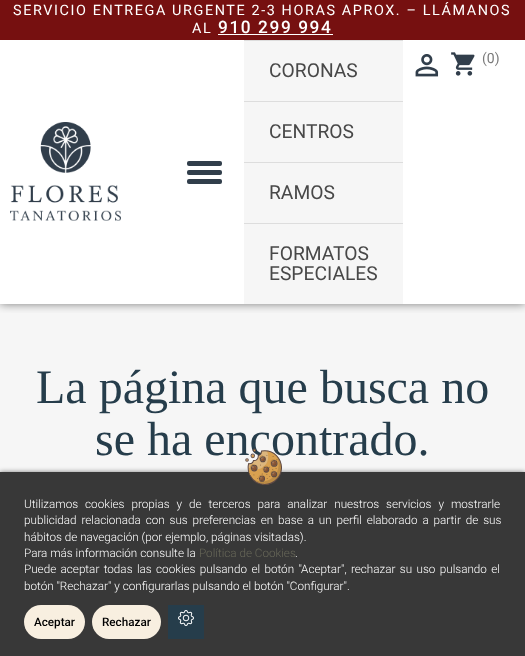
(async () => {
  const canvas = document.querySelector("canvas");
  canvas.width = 525;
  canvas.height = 656;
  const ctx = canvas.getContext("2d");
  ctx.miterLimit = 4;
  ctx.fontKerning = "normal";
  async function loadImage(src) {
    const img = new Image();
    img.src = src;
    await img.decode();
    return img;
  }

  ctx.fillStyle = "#ffffff";
  ctx.fillRect(0, 0, 525, 656);
  ctx.fillStyle = "#f6f6f6";
  ctx.fillRect(0, 304, 525, 168);
  ctx.save();
  ctx.beginPath();
  ctx.rect(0, 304, 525, 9);
  ctx.clip();
  ctx.fillStyle = "rgba(0, 0, 0, 0.5)";
  ctx.filter = "blur(5px)";
  ctx.beginPath();
  ctx.rect(0, 40, 525, 264);
  ctx.fill();
  ctx.filter = "none";
  ctx.restore();
  ctx.fillStyle = "#761010";
  ctx.fillRect(0, 0, 525, 40);
  ctx.fillStyle = "#ffffff";
  ctx.fillRect(218, 34, 115, 1);
  ctx.drawImage(await loadImage("img/1.png"), 10, 122, 111, 99);
  ctx.drawImage(await loadImage("img/2.png"), 415, 54, 24, 23);
  ctx.drawImage(await loadImage("img/3.png"), 451, 52, 24, 24);
  ctx.fillStyle = "#313e4b";
  ctx.beginPath();
  ctx.roundRect(187, 161, 35, 5, 2);
  ctx.fill();
  ctx.beginPath();
  ctx.roundRect(187, 170, 35, 5, 2);
  ctx.fill();
  ctx.beginPath();
  ctx.roundRect(187, 179, 35, 5, 2);
  ctx.fill();
  for (const [x, y, w, h, color] of [
    [244, 41, 159, 263, "#f6f6f6"],
    [244, 40, 159, 1, "#dddddd"],
    [244, 101, 159, 1, "#dddddd"],
    [244, 162, 159, 1, "#dddddd"],
    [244, 223, 159, 1, "#dddddd"],
  ]) {
    ctx.fillStyle = color;
    ctx.fillRect(x, y, w, h);
  }
  ctx.fillStyle = "rgba(0, 0, 0, 0.5)";
  ctx.filter = "blur(2.5px)";
  ctx.beginPath();
  ctx.rect(0, 472, 525, 184);
  ctx.fill();
  ctx.filter = "none";
  ctx.fillStyle = "#383838";
  ctx.fillRect(0, 472, 525, 184);
  ctx.fillStyle = "#263d4b";
  ctx.fillRect(168, 605, 36, 34);
  ctx.fillStyle = "#f8efe0";
  ctx.beginPath();
  ctx.roundRect(24, 605, 61, 34, 17);
  ctx.fill();
  ctx.beginPath();
  ctx.roundRect(92, 605, 69, 34, 17);
  ctx.fill();
  ctx.drawImage(await loadImage("img/5.png"), 178, 610, 16, 16);
  ctx.letterSpacing = "1.6px";
  ctx.font = "14.4px Roboto";
  ctx.fillStyle = "#ffffff";
  ctx.fillText("SERVICIO ENTREGA URGENTE 2-3 HORAS APROX. – LLÁMANOS", 13, 15);
  ctx.fillText("AL", 192, 33);
  ctx.font = "500 17.25px Roboto";
  ctx.fillText("910 299 994", 218, 33);
  ctx.letterSpacing = "0px";
  ctx.font = "14px Roboto";
  ctx.fillStyle = "#7a7a7a";
  ctx.fillText("(0)", 482, 63);
  ctx.font = "19.25px Roboto";
  ctx.fillStyle = "#484848";
  for (const [text, x, y] of [
    ["CORONAS", 269, 77],
    ["CENTROS", 269, 138],
    ["RAMOS", 269, 199],
    ["FORMATOS", 269, 260],
    ["ESPECIALES", 269, 280],
  ]) {
    ctx.fillText(text, x, y);
  }
  ctx.font = "48px Liberation Serif";
  ctx.fillStyle = "#263d4b";
  ctx.fillText("La página que busca no", 36, 403);
  ctx.fillText("se ha encontrado.", 95, 455);
  ctx.drawImage(await loadImage("img/4.png"), 245, 448, 37, 37);
  ctx.wordSpacing = "4.1px";
  ctx.font = "300 11.7px Roboto";
  ctx.fillStyle = "#ffffff";
  ctx.fillText("Utilizamos cookies propias y de terceros para analizar nuestros servicios y mostrarle", 24, 508);
  ctx.wordSpacing = "2px";
  ctx.fillText("publicidad relacionada con sus preferencias en base a un perfil elaborado a partir de sus", 24, 524);
  ctx.wordSpacing = "0px";
  ctx.fillText("hábitos de navegación (por ejemplo, páginas visitadas).", 24, 541);
  ctx.fillText("Para más información consulte la", 24, 557);
  ctx.fillStyle = "#686859";
  ctx.fillText("Política de Cookies", 199, 557);
  ctx.fillStyle = "#ffffff";
  ctx.fillText(".", 295, 557);
  ctx.wordSpacing = "1.5px";
  ctx.fillText("Puede aceptar todas las cookies pulsando el botón \"Aceptar\", rechazar su uso pulsando el", 24, 573);
  ctx.wordSpacing = "0px";
  ctx.fillText("botón \"Rechazar\" y configurarlas pulsando el botón \"Configurar\".", 24, 590);
  ctx.font = "500 11.7px Roboto";
  ctx.fillStyle = "#000000";
  ctx.fillText("Aceptar", 34, 626);
  ctx.fillText("Rechazar", 102, 626);
})();
